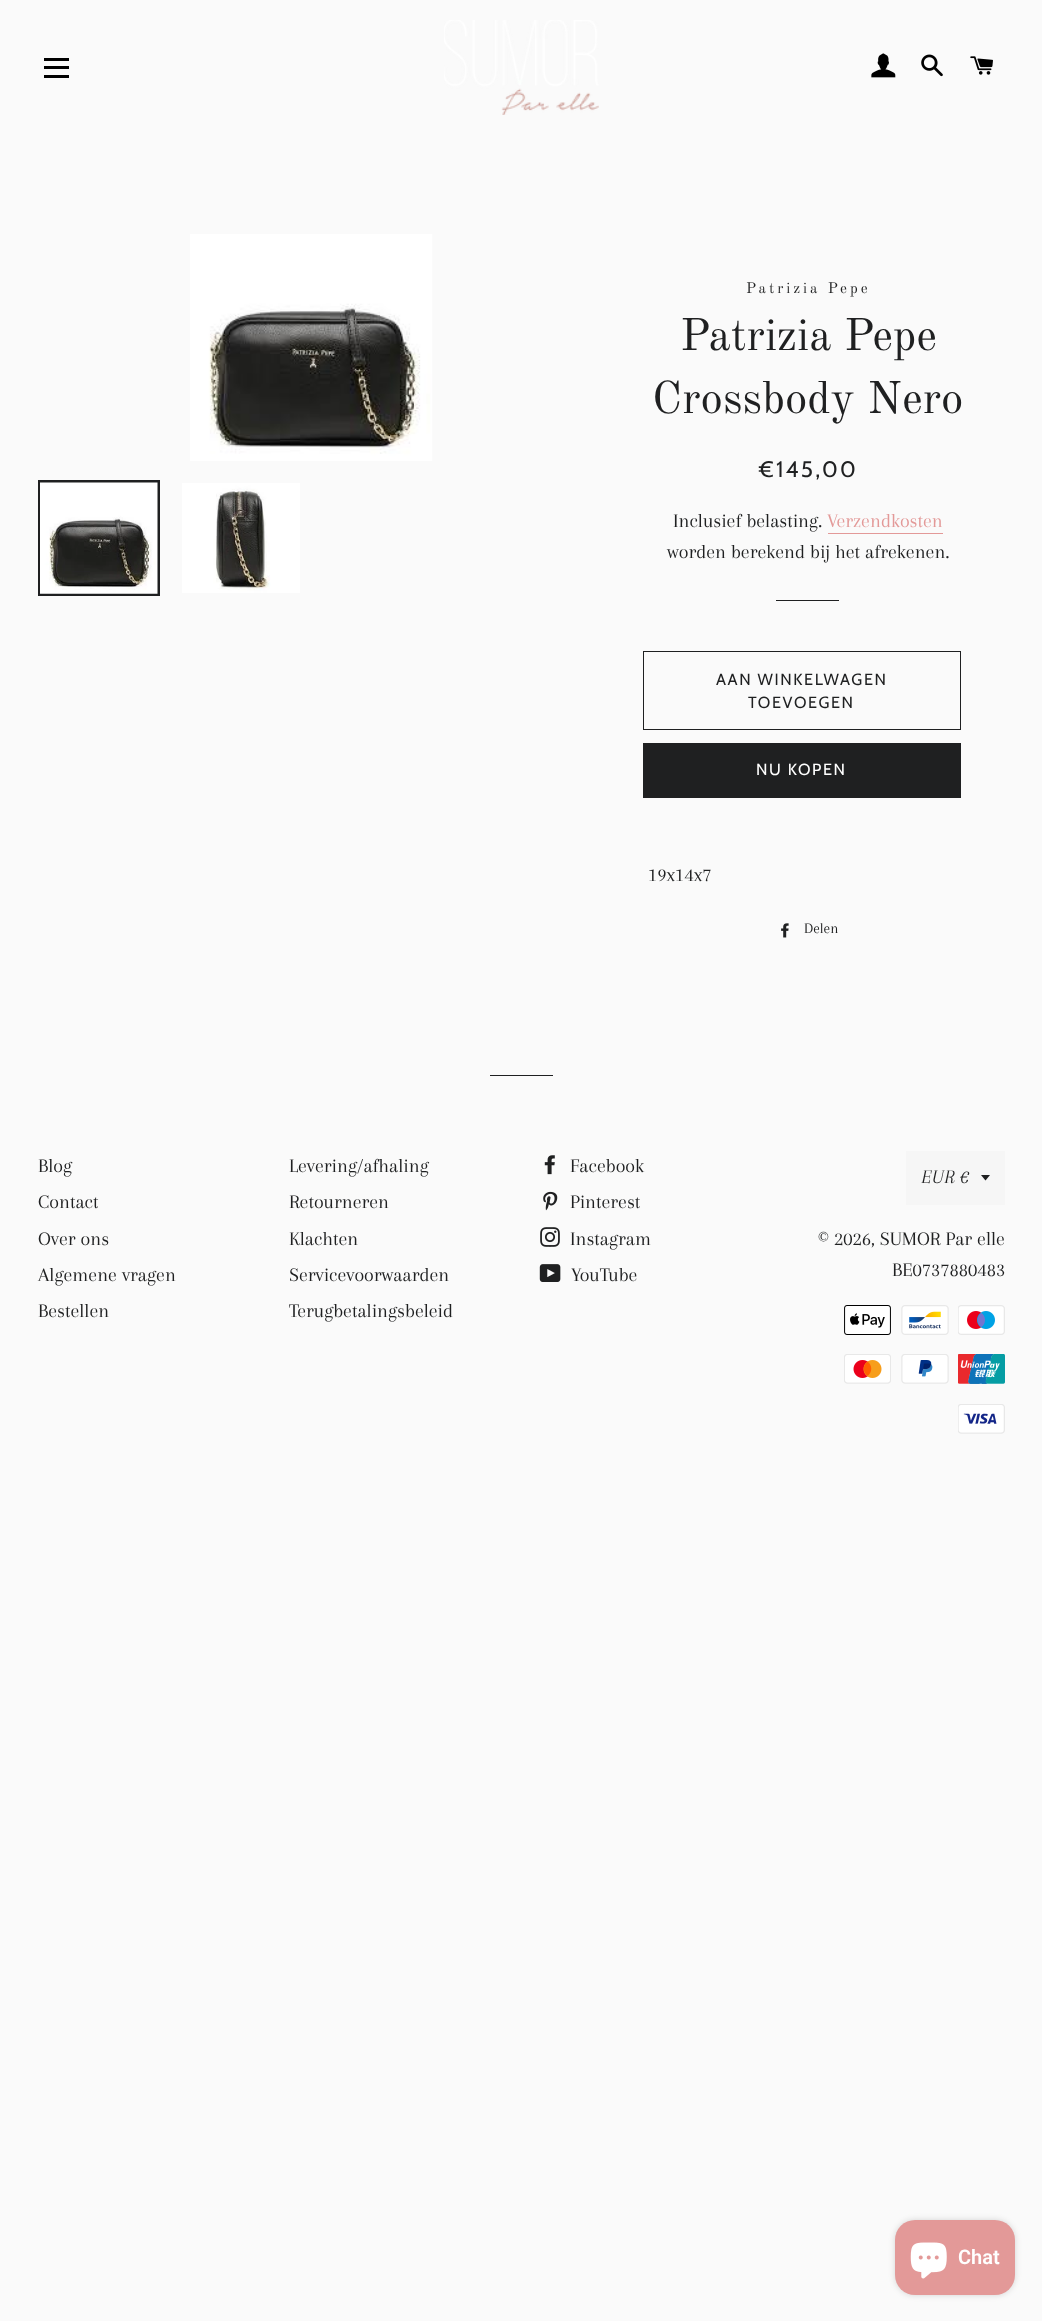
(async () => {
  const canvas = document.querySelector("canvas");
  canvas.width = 1042;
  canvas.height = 2321;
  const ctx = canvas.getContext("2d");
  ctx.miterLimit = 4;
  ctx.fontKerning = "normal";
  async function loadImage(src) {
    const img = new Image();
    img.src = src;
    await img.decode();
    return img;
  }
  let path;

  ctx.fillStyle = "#fafafa";
  ctx.fillRect(0, 0, 1042, 2321);
  for (const [x, y, w, h, color] of [
    [44, 58, 25, 3, "#000000"],
    [44, 66, 25, 3, "#000000"],
    [44, 75, 25, 3, "#000000"],
  ]) {
    ctx.fillStyle = color;
    ctx.fillRect(x, y, w, h);
  }
  ctx.drawImage(await loadImage("img/1.png"), 444, 20, 155, 95);
  ctx.drawImage(await loadImage("img/2.png"), 871, 53, 25, 25);
  ctx.drawImage(await loadImage("img/3.png"), 921, 54, 22, 23);
  ctx.drawImage(await loadImage("img/4.png"), 970, 56, 23, 19);
  ctx.fillStyle = "#f6f6f6";
  ctx.fillRect(432, 234, 1, 227);
  ctx.drawImage(await loadImage("img/5.png"), 190, 234, 243, 227);
  ctx.strokeStyle = "#1f2021";
  ctx.lineWidth = 3;
  ctx.strokeRect(39.5, 481.5, 119, 113);
  ctx.drawImage(await loadImage("img/6.png"), 40, 482, 118, 112);
  ctx.drawImage(await loadImage("img/7.png"), 182, 483, 118, 110);
  ctx.fillStyle = "#e39998";
  ctx.fillRect(828, 533, 115, 1);
  ctx.fillStyle = "#1f2021";
  ctx.fillRect(776, 600, 63, 1);
  ctx.lineWidth = 1;
  ctx.strokeRect(643.5, 651.5, 317, 78);
  ctx.fillRect(643, 743, 318, 55);
  ctx.drawImage(await loadImage("img/8.png"), 781, 923, 8, 15);
  ctx.fillRect(490, 1075, 63, 1);
  ctx.drawImage(await loadImage("img/9.png"), 544, 1155, 11, 20);
  ctx.drawImage(await loadImage("img/10.png"), 543, 1191, 15, 20);
  ctx.drawImage(await loadImage("img/11.png"), 540, 1227, 20, 20);
  ctx.drawImage(await loadImage("img/12.png"), 539, 1264, 22, 18);
  ctx.fillStyle = "#f6f6f6";
  ctx.fillRect(906, 1151, 99, 54);
  ctx.fillStyle = "#1f2021";
  path = new Path2D("M981 1175L985.5 1180.5L990 1175Z");
  ctx.fill(path);
  ctx.drawImage(await loadImage("img/13.png"), 844, 1305, 47, 30);
  ctx.drawImage(await loadImage("img/14.png"), 901, 1305, 48, 30);
  ctx.drawImage(await loadImage("img/15.png"), 958, 1305, 47, 30);
  ctx.drawImage(await loadImage("img/16.png"), 844, 1354, 47, 30);
  ctx.drawImage(await loadImage("img/17.png"), 901, 1354, 48, 30);
  ctx.drawImage(await loadImage("img/18.png"), 958, 1354, 47, 30);
  ctx.drawImage(await loadImage("img/19.png"), 958, 1404, 47, 30);
  ctx.fillStyle = "rgba(0, 0, 0, 0.15)";
  ctx.filter = "blur(3px)";
  ctx.beginPath();
  ctx.roundRect(895, 2220, 120, 75, 20);
  ctx.fill();
  ctx.filter = "none";
  ctx.fillStyle = "#e39998";
  ctx.beginPath();
  ctx.roundRect(895, 2220, 120, 75, 20);
  ctx.fill();
  ctx.drawImage(await loadImage("img/20.png"), 910, 2242, 37, 37);
  ctx.letterSpacing = "3px";
  ctx.font = "15px Old Standard TT";
  ctx.fillStyle = "#1f2021";
  ctx.fillText("Patrizia Pepe", 746, 293);
  ctx.letterSpacing = "0px";
  ctx.font = "45px Old Standard TT";
  ctx.fillText("Patrizia Pepe", 680, 350);
  ctx.fillText("Crossbody Nero", 652, 413);
  ctx.letterSpacing = "2.25px";
  ctx.font = "22.5px Cabin";
  ctx.fillText("€145,00", 759, 477);
  ctx.letterSpacing = "0px";
  ctx.font = "20px Arapey";
  ctx.fillText("Inclusief belasting.", 673, 527);
  ctx.fillStyle = "#e39998";
  ctx.fillText("Verzendkosten", 827, 527);
  ctx.fillStyle = "#1f2021";
  ctx.fillText("worden berekend bij het afrekenen.", 667, 558);
  ctx.letterSpacing = "1.6px";
  ctx.font = "16.25px Cabin";
  ctx.fillText("AAN WINKELWAGEN", 716, 685);
  ctx.fillText("TOEVOEGEN", 748, 708);
  ctx.fillStyle = "#ffffff";
  ctx.fillText("NU KOPEN", 756, 775);
  ctx.letterSpacing = "0px";
  ctx.font = "20px Arapey";
  ctx.fillStyle = "#1f2021";
  ctx.fillText("19x14x7", 648, 881);
  ctx.font = "15px Arapey";
  ctx.fillText("Delen", 804, 933);
  ctx.font = "20px Arapey";
  for (const [text, x, y] of [
    ["Blog", 38, 1172],
    ["Contact", 38, 1208],
    ["Over ons", 38, 1245],
    ["Algemene vragen", 38, 1281],
    ["Bestellen", 38, 1317],
    ["Levering/afhaling", 289, 1172],
    ["Retourneren", 289, 1208],
    ["Klachten", 289, 1245],
    ["Servicevoorwaarden", 289, 1281],
    ["Terugbetalingsbeleid", 289, 1317],
    ["Facebook", 570, 1172],
    ["Pinterest", 570, 1208],
    ["Instagram", 570, 1245],
    ["YouTube", 571, 1281],
  ]) {
    ctx.fillText(text, x, y);
  }
  ctx.font = "italic 20px Arapey";
  ctx.fillText("EUR €", 921, 1183);
  ctx.font = "20px Arapey";
  ctx.fillText("© 2026, SUMOR Par elle", 818, 1245);
  ctx.fillText("BE0737880483", 892, 1276);
  ctx.font = "600 20px Roboto";
  ctx.fillStyle = "#ffffff";
  ctx.fillText("Chat", 958, 2264);
})();
